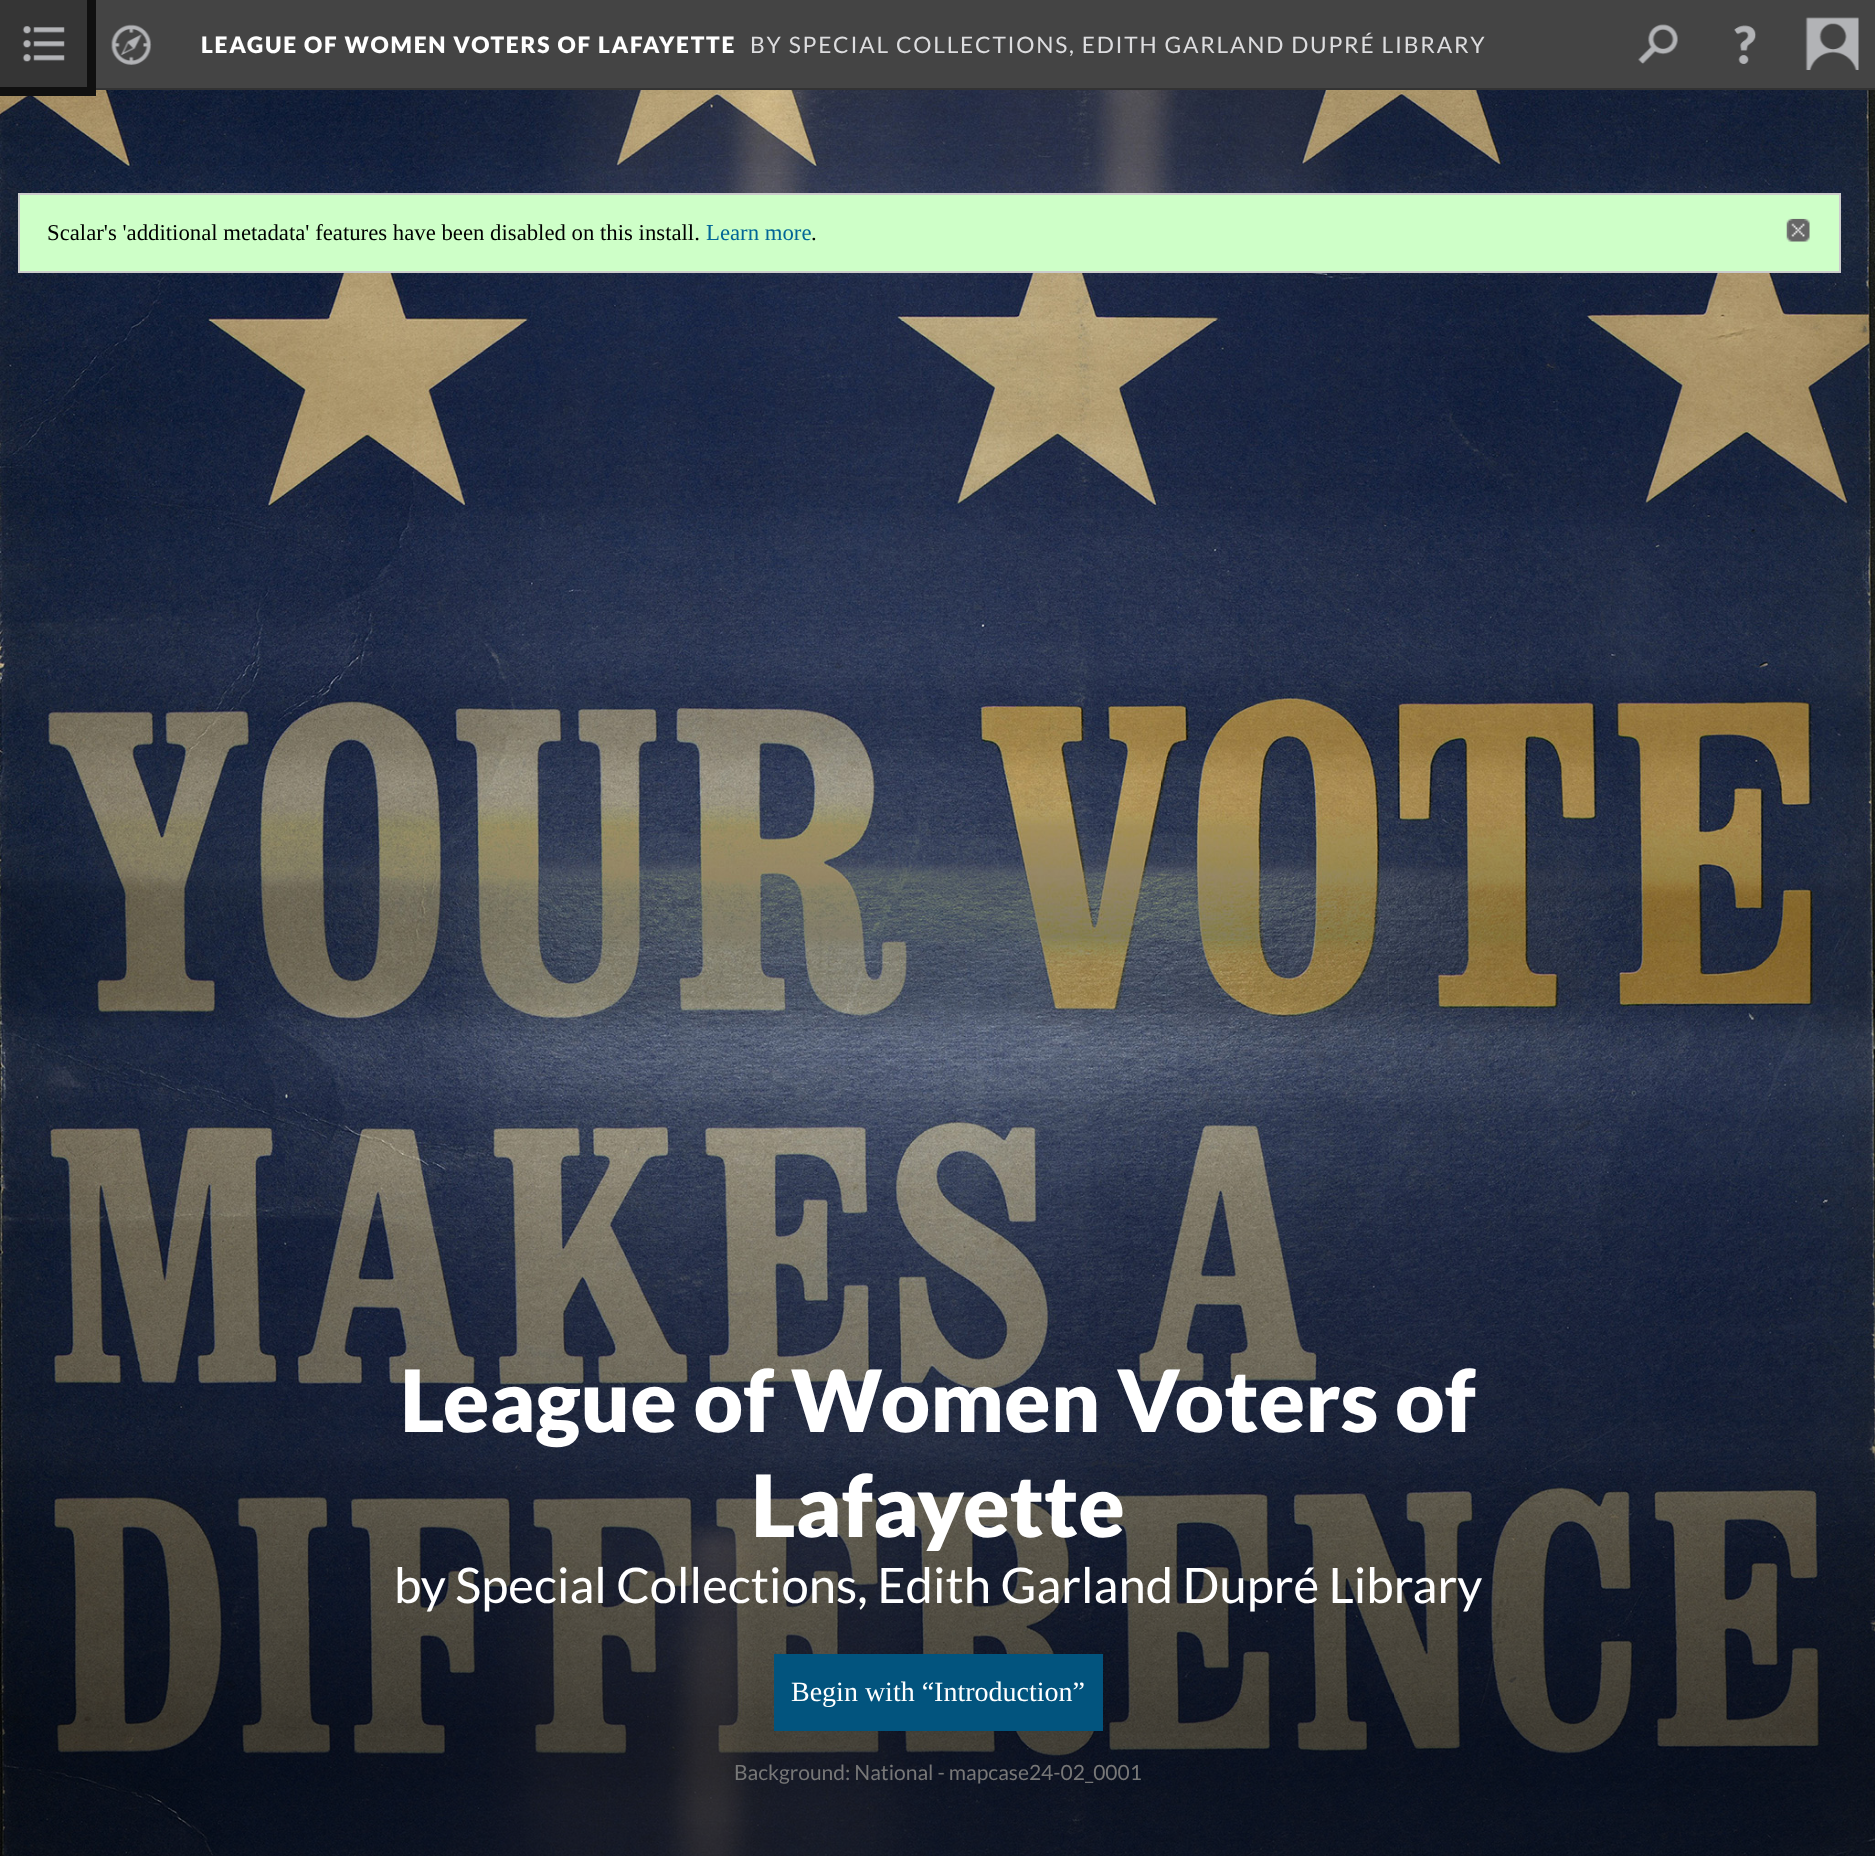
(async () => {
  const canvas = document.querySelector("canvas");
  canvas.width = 1875;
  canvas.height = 1856;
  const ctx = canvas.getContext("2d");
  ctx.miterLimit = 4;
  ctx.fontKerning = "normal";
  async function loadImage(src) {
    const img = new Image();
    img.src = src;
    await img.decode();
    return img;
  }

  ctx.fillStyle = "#ffffff";
  ctx.fillRect(0, 0, 1875, 1856);
  for (const [x, y, w, h, color] of [
    [96, 0, 1779, 88, "#444444"],
    [96, 88, 1779, 2, "#333333"],
    [0, 0, 87, 87, "#353535"],
  ]) {
    ctx.fillStyle = color;
    ctx.fillRect(x, y, w, h);
  }
  ctx.drawImage(await loadImage("img/1.png"), 22, 26, 43, 36);
  ctx.drawImage(await loadImage("img/6.png"), 0, 90, 1875, 1766);
  ctx.strokeStyle = "#101010";
  ctx.lineWidth = 9;
  ctx.strokeRect(-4.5, -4.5, 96, 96);
  ctx.drawImage(await loadImage("img/2.png"), 111, 24, 41, 41);
  ctx.drawImage(await loadImage("img/3.png"), 1638, 24, 40, 40);
  ctx.drawImage(await loadImage("img/4.png"), 1734, 25, 22, 39);
  ctx.drawImage(await loadImage("img/5.png"), 1805, 17, 54, 53);
  ctx.fillStyle = "#ceffc8";
  ctx.beginPath();
  ctx.rect(19, 194, 1821, 78);
  ctx.fill();
  ctx.strokeStyle = "#cccccc";
  ctx.lineWidth = 2;
  ctx.stroke();
  ctx.drawImage(await loadImage("img/7.png"), 1786, 218, 24, 24);
  ctx.fillStyle = "#02547e";
  ctx.fillRect(774, 1654, 329, 77);
  ctx.letterSpacing = "1.75px";
  ctx.font = "900 22.75px Lato";
  ctx.fillStyle = "#ffffff";
  ctx.fillText("LEAGUE OF WOMEN VOTERS OF LAFAYETTE", 201, 53);
  ctx.font = "22.75px Lato";
  ctx.fillStyle = "#dddddf";
  ctx.fillText("BY SPECIAL COLLECTIONS, EDITH GARLAND DUPRÉ LIBRARY", 750, 53);
  ctx.letterSpacing = "0px";
  ctx.font = "22.75px Liberation Serif";
  ctx.fillStyle = "#000000";
  ctx.fillText("Scalar's 'additional metadata' features have been disabled on this install.", 47, 240);
  ctx.fillStyle = "#026697";
  ctx.fillText("Learn more", 706, 240);
  ctx.fillStyle = "#000000";
  ctx.fillText(".", 811, 240);
  ctx.font = "900 85.75px Lato";
  ctx.fillStyle = "#ffffff";
  ctx.fillText("League of Women Voters of", 400, 1432);
  ctx.fillText("Lafayette", 751, 1537);
  ctx.font = "49px Lato";
  ctx.fillText("by Special Collections, Edith Garland Dupré Library", 394, 1603);
  ctx.font = "28px Liberation Serif";
  ctx.fillText("Begin with “Introduction”", 791, 1701);
  ctx.font = "21px Lato";
  ctx.fillStyle = "#777777";
  ctx.fillText("Background: National - mapcase24-02_0001", 734, 1780);
})();
